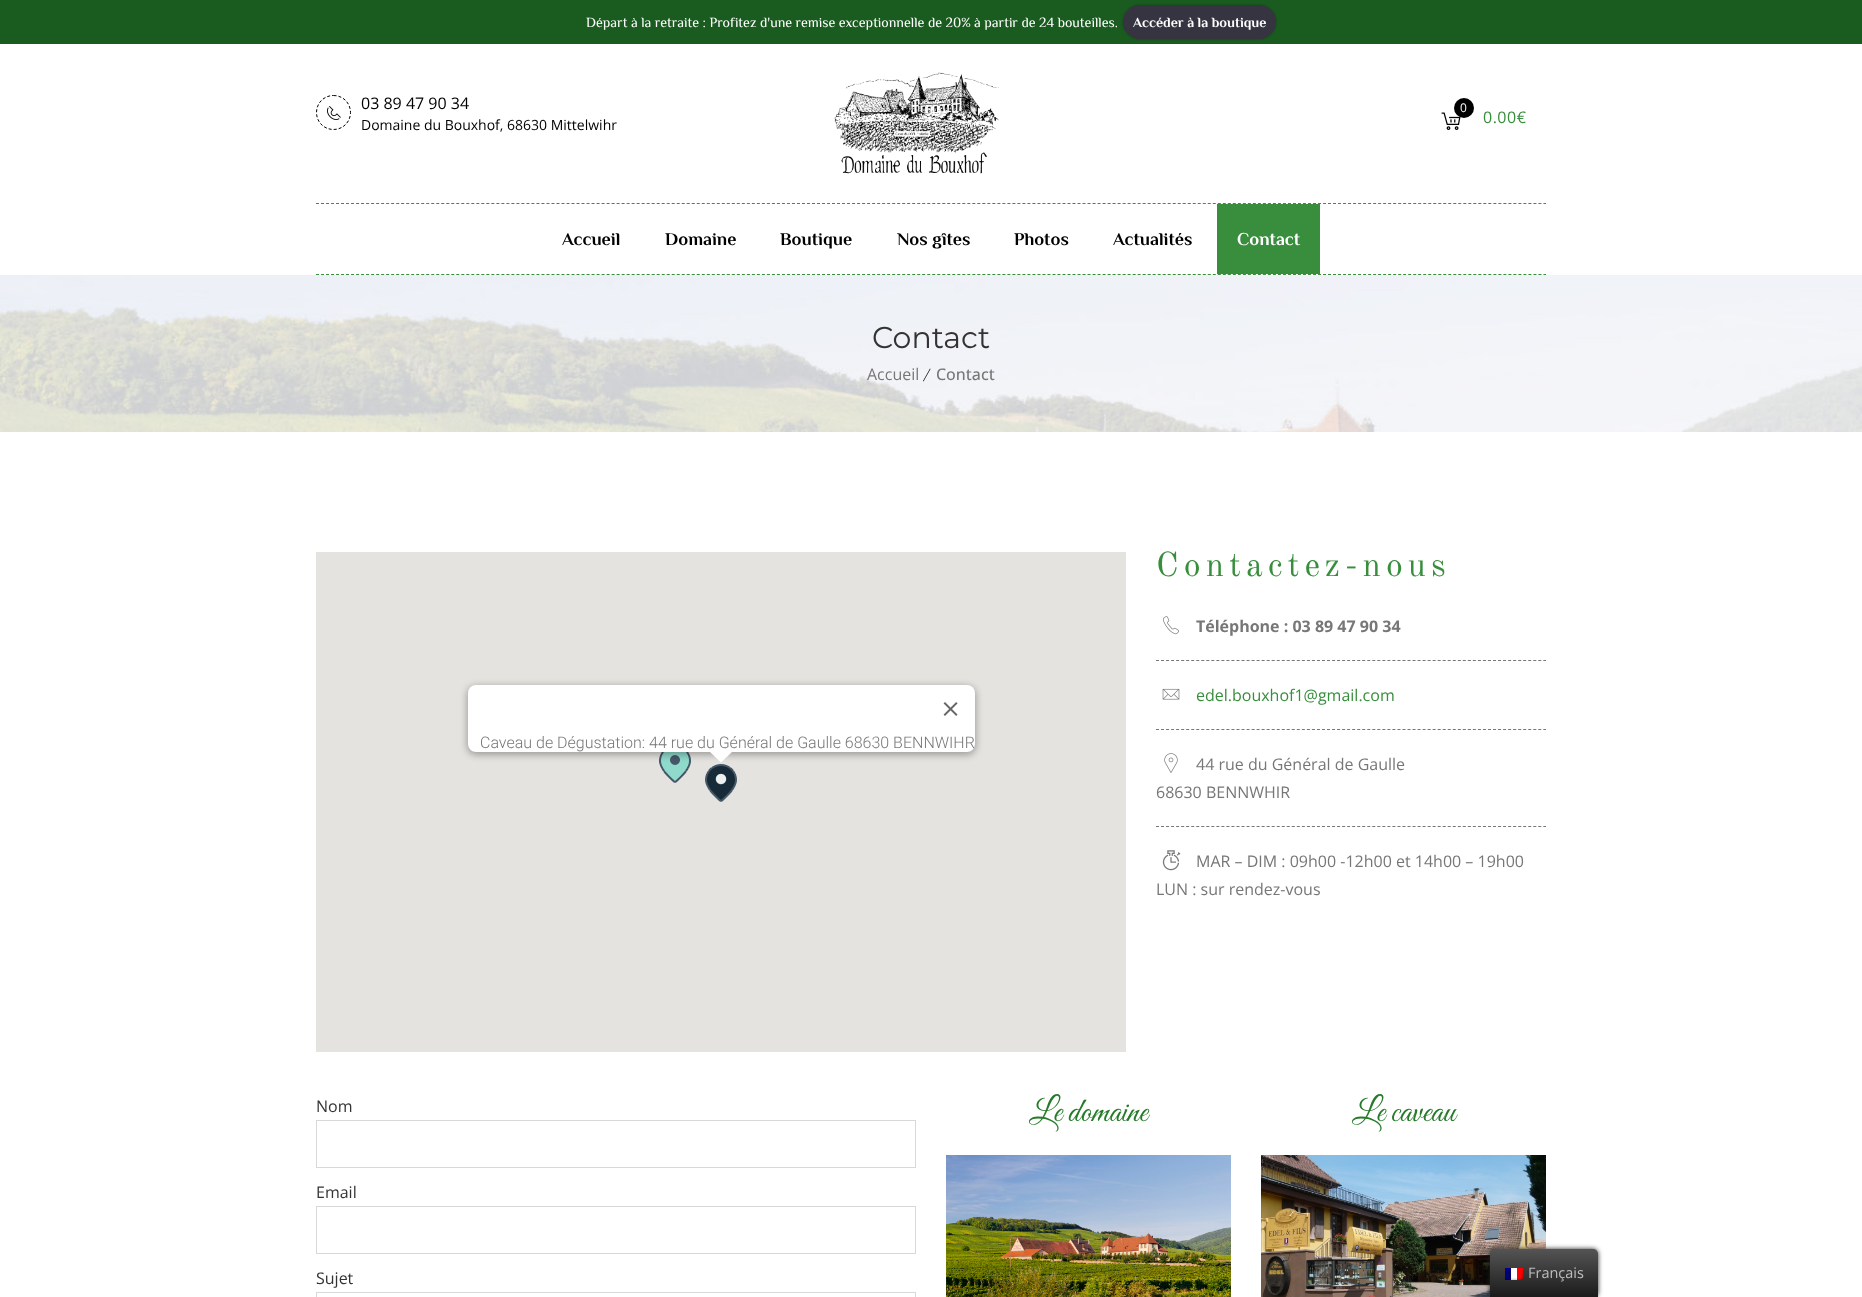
(async () => {
  const canvas = document.querySelector("canvas");
  canvas.width = 1862;
  canvas.height = 1297;
  const ctx = canvas.getContext("2d");
  ctx.miterLimit = 4;
  ctx.fontKerning = "normal";
  async function loadImage(src) {
    const img = new Image();
    img.src = src;
    await img.decode();
    return img;
  }
  let gradient, path;

  ctx.fillStyle = "#ffffff";
  ctx.fillRect(0, 0, 1862, 1297);
  ctx.fillStyle = "#1a5b1f";
  ctx.fillRect(0, 0, 1862, 44);
  ctx.fillStyle = "rgba(0, 0, 0, 0.25)";
  ctx.filter = "blur(1px)";
  ctx.beginPath();
  ctx.roundRect(1123, 5, 153, 34, 17);
  ctx.fill();
  ctx.filter = "none";
  ctx.fillStyle = "#363441";
  ctx.beginPath();
  ctx.roundRect(1123, 5, 153, 34, 17);
  ctx.fill();
  path = new Path2D("M333.5 95.5C343 95.5 350.5 103 350.5 112.5C350.5 122 343 129.5 333.5 129.5C324 129.5 316.5 122 316.5 112.5C316.5 103 324 95.5 333.5 95.5Z");
  ctx.strokeStyle = "#000000";
  ctx.setLineDash([3, 2]);
  ctx.stroke(path);
  ctx.drawImage(await loadImage("img/1.png"), 327, 106, 14, 14);
  ctx.drawImage(await loadImage("img/2.png"), 834, 72, 165, 102);
  ctx.drawImage(await loadImage("img/3.png"), 1441, 112, 20, 18);
  ctx.fillStyle = "#000000";
  ctx.beginPath();
  ctx.arc(1464, 108, 10, 0, Math.PI * 2);
  ctx.fill();
  path = new Path2D("M316 203.5H1546");
  ctx.strokeStyle = "#388e3c";
  ctx.setLineDash([3, 2.01]);
  ctx.stroke(path);
  path = new Path2D("M316 274.5H1546");
  ctx.stroke(path);
  ctx.fillStyle = "#388e3c";
  ctx.fillRect(1217, 204, 103, 70);
  ctx.drawImage(await loadImage("img/4.png"), 0, 275, 1862, 157);
  ctx.fillStyle = "#000000";
  path = new Path2D("M930 368.5L930.5 369L923.5 381.5L923 381Z");
  ctx.fill(path);
  ctx.fillStyle = "#e5e3df";
  ctx.fillRect(316, 552, 810, 500);
  ctx.drawImage(await loadImage("img/6.png"), 659, 752, 32, 31);
  ctx.drawImage(await loadImage("img/7.png"), 705, 764, 32, 38);
  ctx.fillStyle = "rgba(0, 0, 0, 0.3)";
  ctx.filter = "blur(3.5px)";
  ctx.beginPath();
  ctx.roundRect(467, 686, 509, 69, 9);
  ctx.fill();
  ctx.filter = "none";
  ctx.fillStyle = "#ffffff";
  ctx.beginPath();
  ctx.roundRect(468, 685, 507, 67, 8);
  ctx.fill();
  ctx.drawImage(await loadImage("img/5.png"), 943, 702, 15, 14);
  ctx.drawImage(await loadImage("img/8.png"), 1163, 616, 16, 19);
  path = new Path2D("M1156 660.5H1546");
  ctx.strokeStyle = "#777777";
  ctx.setLineDash([3, 2.03]);
  ctx.stroke(path);
  ctx.drawImage(await loadImage("img/9.png"), 1162, 688, 18, 12);
  path = new Path2D("M1156 729.5H1546");
  ctx.stroke(path);
  ctx.drawImage(await loadImage("img/10.png"), 1164, 753, 14, 20);
  path = new Path2D("M1156 826.5H1546");
  ctx.stroke(path);
  ctx.drawImage(await loadImage("img/11.png"), 1162, 850, 19, 21);
  ctx.strokeStyle = "#d9d9d9";
  ctx.setLineDash([]);
  ctx.strokeRect(316.5, 1120.5, 599, 47);
  ctx.strokeRect(316.5, 1206.5, 599, 47);
  ctx.strokeRect(316.5, 1292.5, 599, 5);
  ctx.drawImage(await loadImage("img/12.png"), 946, 1155, 285, 142);
  ctx.drawImage(await loadImage("img/13.png"), 1261, 1155, 285, 142);
  ctx.fillStyle = "#212121";
  ctx.filter = "blur(2.5px)";
  ctx.beginPath();
  ctx.roundRect(1490, 1249, 108, 48, 5);
  ctx.fill();
  ctx.filter = "none";
  gradient = ctx.createLinearGradient(1544, 1297, 1544, 1249);
  gradient.addColorStop(0, "#1b1b1b");
  gradient.addColorStop(1, "#545454");
  ctx.fillStyle = gradient;
  ctx.beginPath();
  ctx.roundRect(1490, 1249, 108, 48, [5, 5, 0, 0]);
  ctx.fill();
  ctx.drawImage(await loadImage("img/14.png"), 1505, 1268, 18, 12);
  ctx.font = "14px Philosopher";
  ctx.fillStyle = "#ffffff";
  ctx.fillText("Départ à la retraite : Profitez d'une remise exceptionnelle de 20% à partir de 24 bouteilles.", 586, 27);
  ctx.font = "bold 14px Philosopher";
  ctx.fillText("Accéder à la boutique", 1133, 27);
  ctx.font = "16px Open Sans";
  ctx.fillStyle = "#000000";
  ctx.fillText("03 89 47 90 34", 361, 109);
  ctx.font = "14px Open Sans";
  ctx.fillText("Domaine du Bouxhof, 68630 Mittelwihr", 361, 130);
  ctx.font = "12px Open Sans";
  ctx.fillStyle = "#ffffff";
  ctx.fillText("0", 1460, 112);
  ctx.letterSpacing = "0.5px";
  ctx.font = "16px Open Sans";
  ctx.fillStyle = "#388e3c";
  ctx.fillText("0.00€", 1483, 123);
  ctx.letterSpacing = "0px";
  ctx.font = "bold 18px Philosopher";
  ctx.fillStyle = "#000000";
  for (const [text, x, y] of [
    ["Accueil", 562, 245],
    ["Domaine", 665, 245],
    ["Boutique", 780, 245],
    ["Nos gîtes", 897, 245],
    ["Photos", 1014, 245],
    ["Actualités", 1113, 245],
  ]) {
    ctx.fillText(text, x, y);
  }
  ctx.fillStyle = "#ffffff";
  ctx.fillText("Contact", 1237, 245);
  ctx.font = "30px Montserrat";
  ctx.fillStyle = "#333333";
  ctx.fillText("Contact", 872, 348);
  ctx.font = "16px Open Sans";
  ctx.fillStyle = "#777777";
  ctx.fillText("Accueil", 867, 380);
  ctx.font = "500 16px Open Sans";
  ctx.fillText("Contact", 936, 380);
  ctx.font = "300 16px Roboto";
  ctx.fillText("Caveau de Dégustation: 44 rue du Général de Gaulle 68630 BENNWIHR", 480, 748);
  ctx.fillStyle = "#ffffff";
  path = new Path2D("M709 751L721 762.5L733 751Z");
  ctx.fill(path);
  ctx.letterSpacing = "5px";
  ctx.font = "34px Old Standard TT";
  ctx.fillStyle = "#388e3c";
  ctx.fillText("Contactez-nous", 1156, 576);
  ctx.letterSpacing = "0px";
  ctx.font = "bold 16px Open Sans";
  ctx.fillStyle = "#777777";
  ctx.fillText("Téléphone : 03 89 47 90 34", 1196, 632);
  ctx.font = "16px Open Sans";
  ctx.fillStyle = "#388e3c";
  ctx.fillText("edel.bouxhof1@gmail.com", 1196, 701);
  ctx.fillStyle = "#777777";
  for (const [text, x, y] of [
    ["44 rue du Général de Gaulle", 1196, 770],
    ["68630 BENNWHIR", 1156, 798],
    ["MAR – DIM : 09h00 -12h00 et 14h00 – 19h00", 1196, 867],
    ["LUN : sur rendez-vous", 1156, 895],
  ]) {
    ctx.fillText(text, x, y);
  }
  ctx.fillStyle = "#333333";
  for (const [text, x, y] of [
    ["Nom", 316, 1112],
    ["Email", 316, 1198],
    ["Sujet", 316, 1284],
  ]) {
    ctx.fillText(text, x, y);
  }
  ctx.font = "34px Great Vibes";
  ctx.fillStyle = "#277a2a";
  ctx.fillText("Le domaine", 1029, 1121);
  ctx.fillText("Le caveau", 1352, 1121);
  ctx.font = "14.5px Open Sans";
  ctx.fillStyle = "#bdbdbd";
  ctx.fillText("Français", 1528, 1278);
})();
